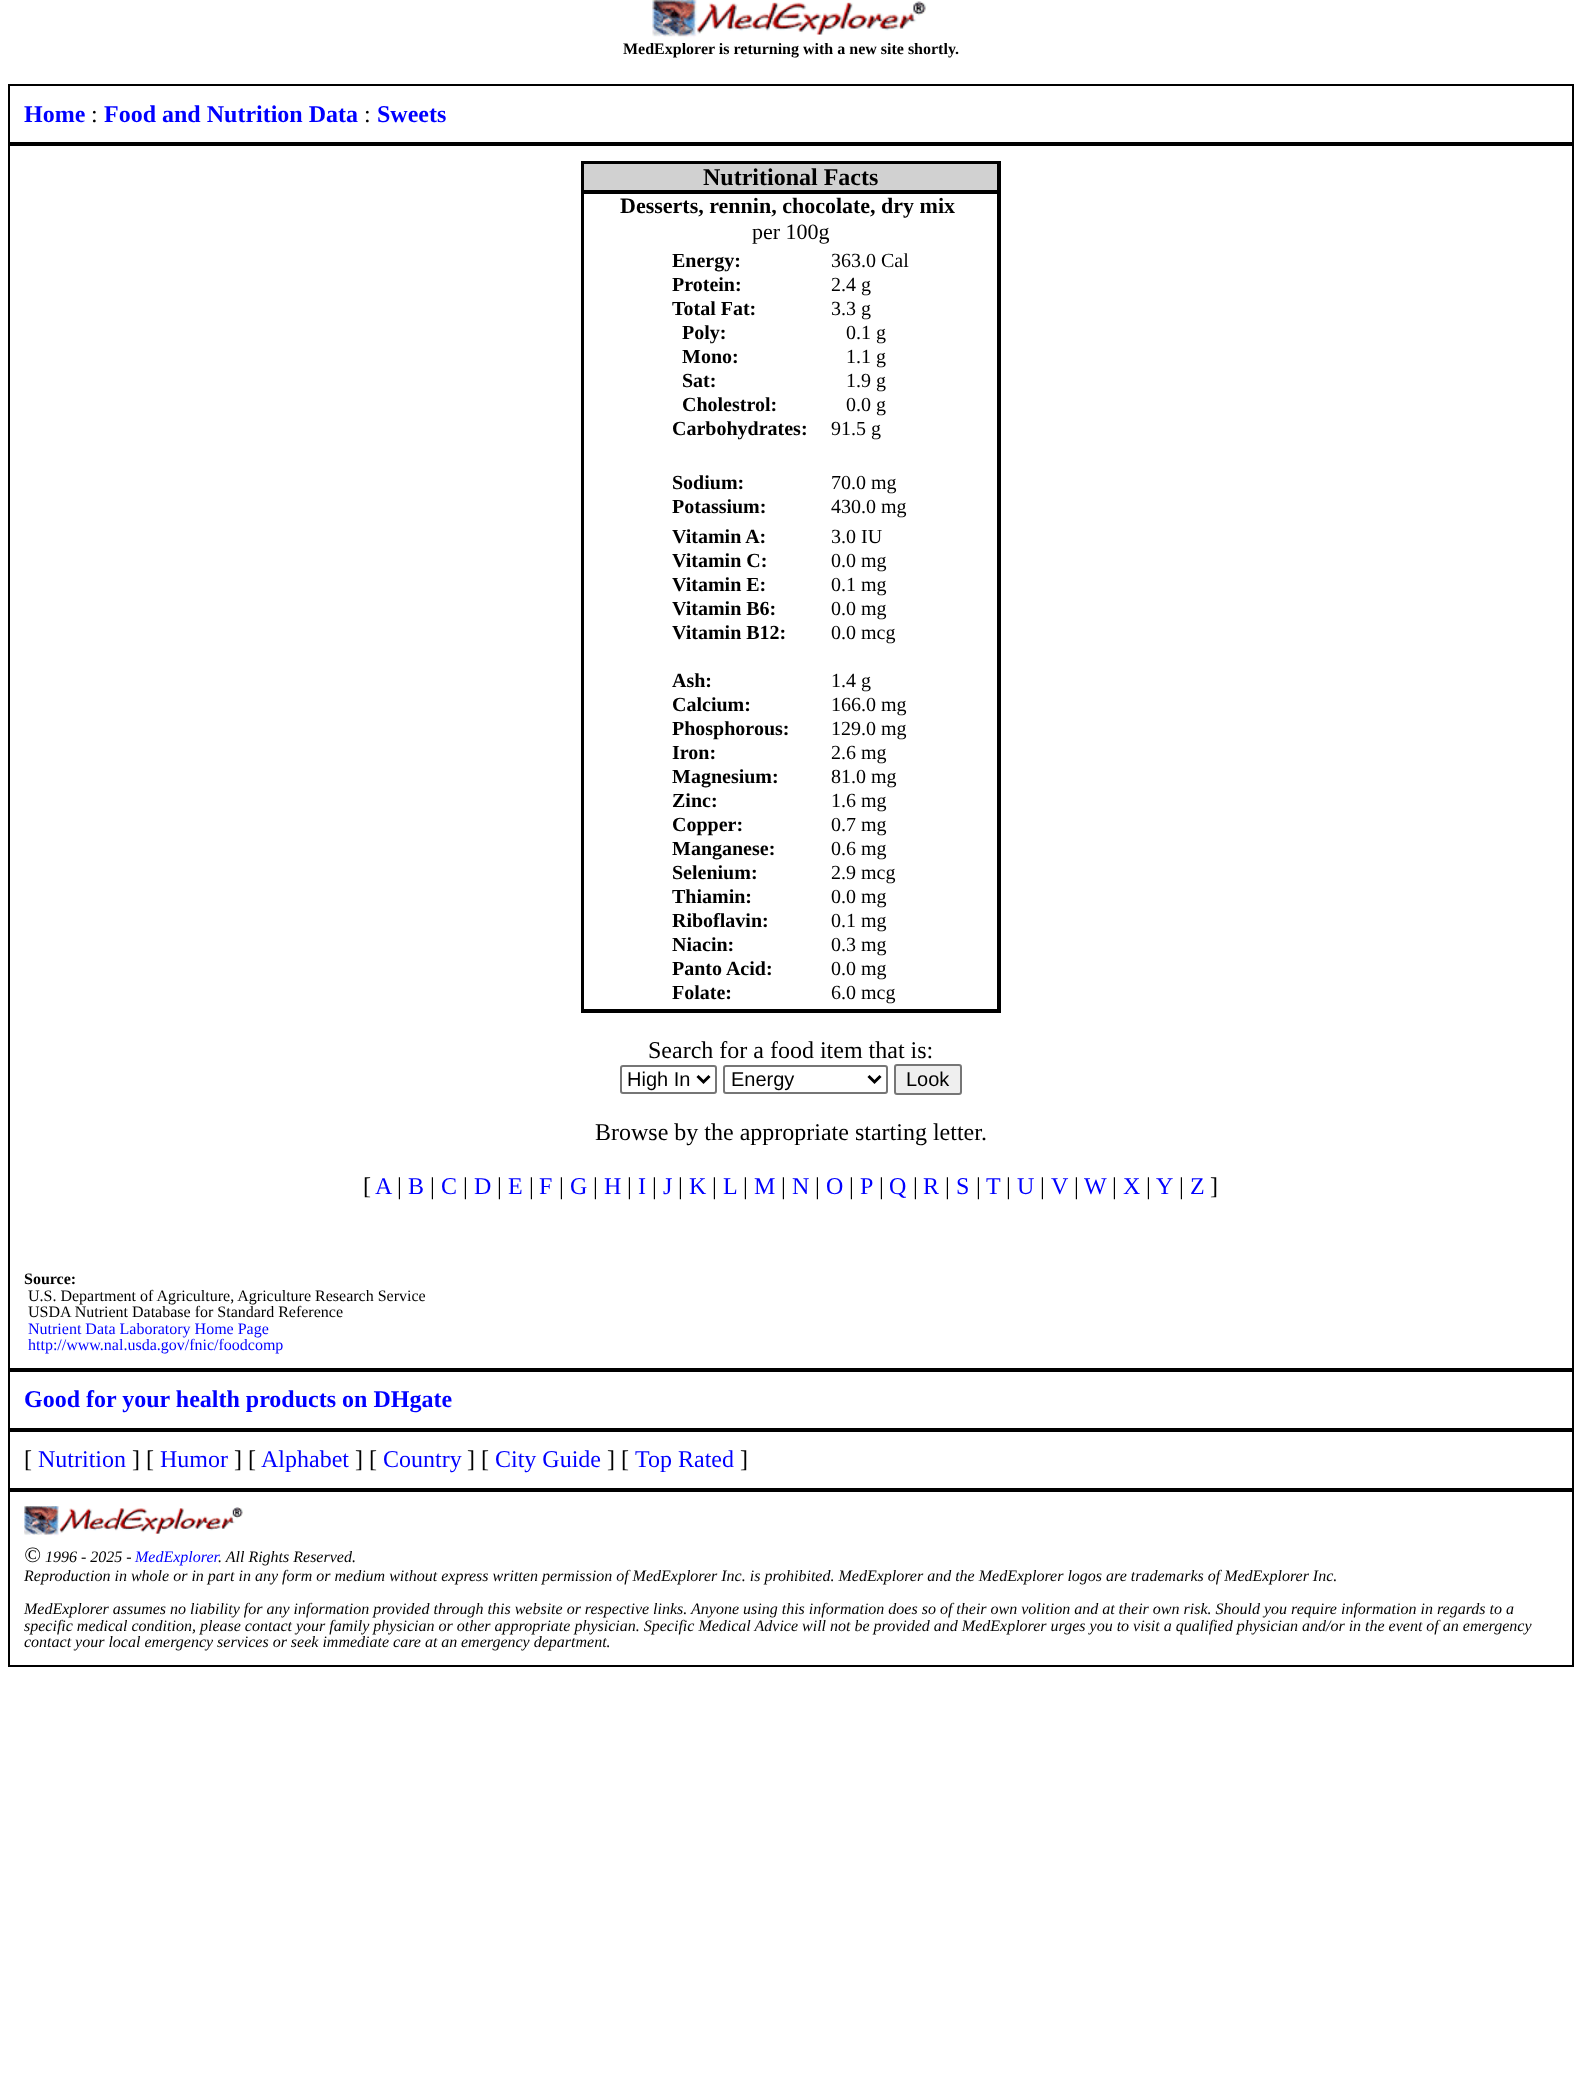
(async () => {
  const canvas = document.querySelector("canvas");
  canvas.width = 1581;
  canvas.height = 2075;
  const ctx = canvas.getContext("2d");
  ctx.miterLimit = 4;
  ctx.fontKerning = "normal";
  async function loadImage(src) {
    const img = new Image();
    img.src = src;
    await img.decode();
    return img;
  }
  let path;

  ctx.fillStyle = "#ffffff";
  ctx.fillRect(0, 0, 1581, 2075);
  ctx.drawImage(await loadImage("img/1.png"), 652, 0, 275, 38);
  ctx.strokeStyle = "#000000";
  ctx.lineWidth = 2;
  ctx.strokeRect(9, 85, 1564, 58);
  ctx.strokeRect(9, 145, 1564, 1224);
  ctx.strokeRect(582, 162, 418, 850);
  ctx.fillStyle = "#d1d1d1";
  ctx.beginPath();
  ctx.rect(583, 163, 415, 28);
  ctx.fill();
  ctx.stroke();
  ctx.strokeRect(583, 193, 415, 817);
  ctx.beginPath();
  ctx.roundRect(621, 1066, 95, 27, 2);
  ctx.strokeStyle = "#767676";
  ctx.stroke();
  path = new Path2D("M697.5 1076L703.5 1082L709.5 1076");
  ctx.strokeStyle = "#000000";
  ctx.lineWidth = 3;
  ctx.stroke(path);
  ctx.beginPath();
  ctx.roundRect(724, 1066, 163, 27, 2);
  ctx.strokeStyle = "#767676";
  ctx.lineWidth = 2;
  ctx.stroke();
  path = new Path2D("M868.5 1076L874.5 1082L880.5 1076");
  ctx.strokeStyle = "#000000";
  ctx.lineWidth = 3;
  ctx.stroke(path);
  ctx.fillStyle = "#efefef";
  ctx.beginPath();
  ctx.roundRect(895, 1065, 66, 29, 2);
  ctx.fill();
  ctx.strokeStyle = "#767676";
  ctx.lineWidth = 2;
  ctx.stroke();
  ctx.strokeStyle = "#000000";
  ctx.strokeRect(9, 1371, 1564, 58);
  ctx.strokeRect(9, 1431, 1564, 58);
  ctx.strokeRect(9, 1491, 1564, 175);
  ctx.drawImage(await loadImage("img/2.png"), 24, 1506, 220, 30);
  ctx.font = "bold 16px Liberation Serif";
  ctx.fillStyle = "#000000";
  ctx.fillText("MedExplorer is returning with a new site shortly.", 623, 54);
  ctx.font = "bold 24px Liberation Serif";
  ctx.fillStyle = "#0000ff";
  ctx.fillText("Home", 24, 122);
  ctx.font = "24px Liberation Serif";
  ctx.fillStyle = "#000000";
  ctx.fillText(":", 91, 122);
  ctx.font = "bold 24px Liberation Serif";
  ctx.fillStyle = "#0000ff";
  ctx.fillText("Food and Nutrition Data", 104, 122);
  ctx.font = "24px Liberation Serif";
  ctx.fillStyle = "#000000";
  ctx.fillText(":", 364, 122);
  ctx.font = "bold 24px Liberation Serif";
  ctx.fillStyle = "#0000ff";
  ctx.fillText("Sweets", 377, 122);
  ctx.fillStyle = "#000000";
  ctx.fillText("Nutritional Facts", 703, 185);
  ctx.font = "bold 22px Liberation Serif";
  ctx.fillText("Desserts, rennin, chocolate, dry mix", 620, 213);
  ctx.font = "22px Liberation Serif";
  ctx.fillText("per 100g", 752, 239);
  ctx.font = "bold 20px Liberation Serif";
  for (const [text, x, y] of [
    ["Energy:", 672, 267],
    ["Protein:", 672, 291],
    ["Total Fat:", 672, 315],
    ["Poly:", 682, 339],
    ["Mono:", 682, 363],
    ["Sat:", 682, 387],
    ["Cholestrol:", 682, 411],
    ["Carbohydrates:", 672, 435],
  ]) {
    ctx.fillText(text, x, y);
  }
  ctx.font = "20px Liberation Serif";
  for (const [text, x, y] of [
    ["363.0 Cal", 831, 267],
    ["2.4 g", 831, 291],
    ["3.3 g", 831, 315],
    ["0.1 g", 846, 339],
    ["1.1 g", 846, 363],
    ["1.9 g", 846, 387],
    ["0.0 g", 846, 411],
    ["91.5 g", 831, 435],
  ]) {
    ctx.fillText(text, x, y);
  }
  ctx.font = "bold 20px Liberation Serif";
  ctx.fillText("Sodium:", 672, 489);
  ctx.fillText("Potassium:", 672, 513);
  ctx.font = "20px Liberation Serif";
  ctx.fillText("70.0 mg", 831, 489);
  ctx.fillText("430.0 mg", 831, 513);
  ctx.font = "bold 20px Liberation Serif";
  for (const [text, x, y] of [
    ["Vitamin A:", 672, 543],
    ["Vitamin C:", 672, 567],
    ["Vitamin E:", 672, 591],
    ["Vitamin B6:", 672, 615],
    ["Vitamin B12:", 672, 639],
    ["Ash:", 672, 687],
    ["Calcium:", 672, 711],
    ["Phosphorous:", 672, 735],
    ["Iron:", 672, 759],
    ["Magnesium:", 672, 783],
    ["Zinc:", 672, 807],
    ["Copper:", 672, 831],
    ["Manganese:", 672, 855],
    ["Selenium:", 672, 879],
    ["Thiamin:", 672, 903],
    ["Riboflavin:", 672, 927],
    ["Niacin:", 672, 951],
    ["Panto Acid:", 672, 975],
    ["Folate:", 672, 999],
  ]) {
    ctx.fillText(text, x, y);
  }
  ctx.font = "20px Liberation Serif";
  for (const [text, x, y] of [
    ["3.0 IU", 831, 543],
    ["0.0 mg", 831, 567],
    ["0.1 mg", 831, 591],
    ["0.0 mg", 831, 615],
    ["0.0 mcg", 831, 639],
    ["1.4 g", 831, 687],
    ["166.0 mg", 831, 711],
    ["129.0 mg", 831, 735],
    ["2.6 mg", 831, 759],
    ["81.0 mg", 831, 783],
    ["1.6 mg", 831, 807],
    ["0.7 mg", 831, 831],
    ["0.6 mg", 831, 855],
    ["2.9 mcg", 831, 879],
    ["0.0 mg", 831, 903],
    ["0.1 mg", 831, 927],
    ["0.3 mg", 831, 951],
    ["0.0 mg", 831, 975],
    ["6.0 mcg", 831, 999],
  ]) {
    ctx.fillText(text, x, y);
  }
  ctx.font = "24px Liberation Serif";
  ctx.fillText("Search for a food item that is:", 648, 1058);
  ctx.font = "20px Liberation Sans";
  for (const [text, x, y] of [
    ["High In", 627, 1086],
    ["Energy", 731, 1086],
    ["Look", 906, 1086],
  ]) {
    ctx.fillText(text, x, y);
  }
  ctx.font = "24px Liberation Serif";
  ctx.fillText("Browse by the appropriate starting letter.", 595, 1140);
  ctx.fillText("[", 363, 1194);
  ctx.fillStyle = "#0000ff";
  ctx.fillText("A", 375, 1194);
  ctx.fillStyle = "#000000";
  ctx.fillText("|", 397, 1194);
  ctx.fillStyle = "#0000ff";
  ctx.fillText("B", 408, 1194);
  ctx.fillStyle = "#000000";
  ctx.fillText("|", 430, 1194);
  ctx.fillStyle = "#0000ff";
  ctx.fillText("C", 441, 1194);
  ctx.fillStyle = "#000000";
  ctx.fillText("|", 463, 1194);
  ctx.fillStyle = "#0000ff";
  ctx.fillText("D", 474, 1194);
  ctx.fillStyle = "#000000";
  ctx.fillText("|", 497, 1194);
  ctx.fillStyle = "#0000ff";
  ctx.fillText("E", 508, 1194);
  ctx.fillStyle = "#000000";
  ctx.fillText("|", 529, 1194);
  ctx.fillStyle = "#0000ff";
  ctx.fillText("F", 539, 1194);
  ctx.fillStyle = "#000000";
  ctx.fillText("|", 559, 1194);
  ctx.fillStyle = "#0000ff";
  ctx.fillText("G", 570, 1194);
  ctx.fillStyle = "#000000";
  ctx.fillText("|", 593, 1194);
  ctx.fillStyle = "#0000ff";
  ctx.fillText("H", 604, 1194);
  ctx.fillStyle = "#000000";
  ctx.fillText("|", 627, 1194);
  ctx.fillStyle = "#0000ff";
  ctx.fillText("I", 638, 1194);
  ctx.fillStyle = "#000000";
  ctx.fillText("|", 652, 1194);
  ctx.fillStyle = "#0000ff";
  ctx.fillText("J", 663, 1194);
  ctx.fillStyle = "#000000";
  ctx.fillText("|", 678, 1194);
  ctx.fillStyle = "#0000ff";
  ctx.fillText("K", 689, 1194);
  ctx.fillStyle = "#000000";
  ctx.fillText("|", 712, 1194);
  ctx.fillStyle = "#0000ff";
  ctx.fillText("L", 723, 1194);
  ctx.fillStyle = "#000000";
  ctx.fillText("|", 743, 1194);
  ctx.fillStyle = "#0000ff";
  ctx.fillText("M", 754, 1194);
  ctx.fillStyle = "#000000";
  ctx.fillText("|", 781, 1194);
  ctx.fillStyle = "#0000ff";
  ctx.fillText("N", 792, 1194);
  ctx.fillStyle = "#000000";
  ctx.fillText("|", 815, 1194);
  ctx.fillStyle = "#0000ff";
  ctx.fillText("O", 826, 1194);
  ctx.fillStyle = "#000000";
  ctx.fillText("|", 849, 1194);
  ctx.fillStyle = "#0000ff";
  ctx.fillText("P", 860, 1194);
  ctx.fillStyle = "#000000";
  ctx.fillText("|", 879, 1194);
  ctx.fillStyle = "#0000ff";
  ctx.fillText("Q", 889, 1194);
  ctx.fillStyle = "#000000";
  ctx.fillText("|", 913, 1194);
  ctx.fillStyle = "#0000ff";
  ctx.fillText("R", 923, 1194);
  ctx.fillStyle = "#000000";
  ctx.fillText("|", 945, 1194);
  ctx.fillStyle = "#0000ff";
  ctx.fillText("S", 956, 1194);
  ctx.fillStyle = "#000000";
  ctx.fillText("|", 976, 1194);
  ctx.fillStyle = "#0000ff";
  ctx.fillText("T", 986, 1194);
  ctx.fillStyle = "#000000";
  ctx.fillText("|", 1006, 1194);
  ctx.fillStyle = "#0000ff";
  ctx.fillText("U", 1017, 1194);
  ctx.fillStyle = "#000000";
  ctx.fillText("|", 1040, 1194);
  ctx.fillStyle = "#0000ff";
  ctx.fillText("V", 1051, 1194);
  ctx.fillStyle = "#000000";
  ctx.fillText("|", 1074, 1194);
  ctx.fillStyle = "#0000ff";
  ctx.fillText("W", 1084, 1194);
  ctx.fillStyle = "#000000";
  ctx.fillText("|", 1112, 1194);
  ctx.fillStyle = "#0000ff";
  ctx.fillText("X", 1123, 1194);
  ctx.fillStyle = "#000000";
  ctx.fillText("|", 1146, 1194);
  ctx.fillStyle = "#0000ff";
  ctx.fillText("Y", 1156, 1194);
  ctx.fillStyle = "#000000";
  ctx.fillText("|", 1179, 1194);
  ctx.fillStyle = "#0000ff";
  ctx.fillText("Z", 1190, 1194);
  ctx.fillStyle = "#000000";
  ctx.fillText("]", 1210, 1194);
  ctx.font = "bold 16px Liberation Serif";
  ctx.fillText("Source:", 24, 1284);
  ctx.font = "16px Liberation Serif";
  ctx.fillText("U.S. Department of Agriculture, Agriculture Research Service", 28, 1301);
  ctx.fillText("USDA Nutrient Database for Standard Reference", 28, 1317);
  ctx.fillStyle = "#0000ff";
  ctx.fillText("Nutrient Data Laboratory Home Page", 28, 1334);
  ctx.fillText("http://www.nal.usda.gov/fnic/foodcomp", 28, 1350);
  ctx.font = "bold 24px Liberation Serif";
  ctx.fillText("Good for your health products on DHgate", 24, 1407);
  ctx.font = "24px Liberation Serif";
  ctx.fillStyle = "#000000";
  ctx.fillText("[", 24, 1467);
  ctx.fillStyle = "#0000ff";
  ctx.fillText("Nutrition", 38, 1467);
  ctx.fillStyle = "#000000";
  ctx.fillText("] [", 132, 1467);
  ctx.fillStyle = "#0000ff";
  ctx.fillText("Humor", 160, 1467);
  ctx.fillStyle = "#000000";
  ctx.fillText("] [", 234, 1467);
  ctx.fillStyle = "#0000ff";
  ctx.fillText("Alphabet", 261, 1467);
  ctx.fillStyle = "#000000";
  ctx.fillText("] [", 355, 1467);
  ctx.fillStyle = "#0000ff";
  ctx.fillText("Country", 383, 1467);
  ctx.fillStyle = "#000000";
  ctx.fillText("] [", 467, 1467);
  ctx.fillStyle = "#0000ff";
  ctx.fillText("City Guide", 495, 1467);
  ctx.fillStyle = "#000000";
  ctx.fillText("] [", 607, 1467);
  ctx.fillStyle = "#0000ff";
  ctx.fillText("Top Rated", 635, 1467);
  ctx.fillStyle = "#000000";
  ctx.fillText("]", 740, 1467);
  ctx.font = "italic 22px Liberation Serif";
  ctx.fillText("©", 24, 1562);
  ctx.font = "italic 16px Liberation Serif";
  ctx.fillText("1996 - 2025 -", 45, 1562);
  ctx.fillStyle = "#0000ff";
  ctx.fillText("MedExplorer", 135, 1562);
  ctx.fillStyle = "#000000";
  for (const [text, x, y] of [
    [". All Rights Reserved.", 218, 1562],
    ["Reproduction in whole or in part in any form or medium without express written permission of MedExplorer Inc. is prohibited. MedExplorer and the MedExplorer logos are trademarks of MedExplorer Inc.", 24, 1581],
    ["MedExplorer assumes no liability for any information provided through this website or respective links. Anyone using this information does so of their own volition and at their own risk. Should you require information in regards to a", 24, 1614],
    ["specific medical condition, please contact your family physician or other appropriate physician. Specific Medical Advice will not be provided and MedExplorer urges you to visit a qualified physician and/or in the event of an emergency", 24, 1631],
    ["contact your local emergency services or seek immediate care at an", 24, 1647],
    ["emergency department.", 461, 1647],
  ]) {
    ctx.fillText(text, x, y);
  }
})();
